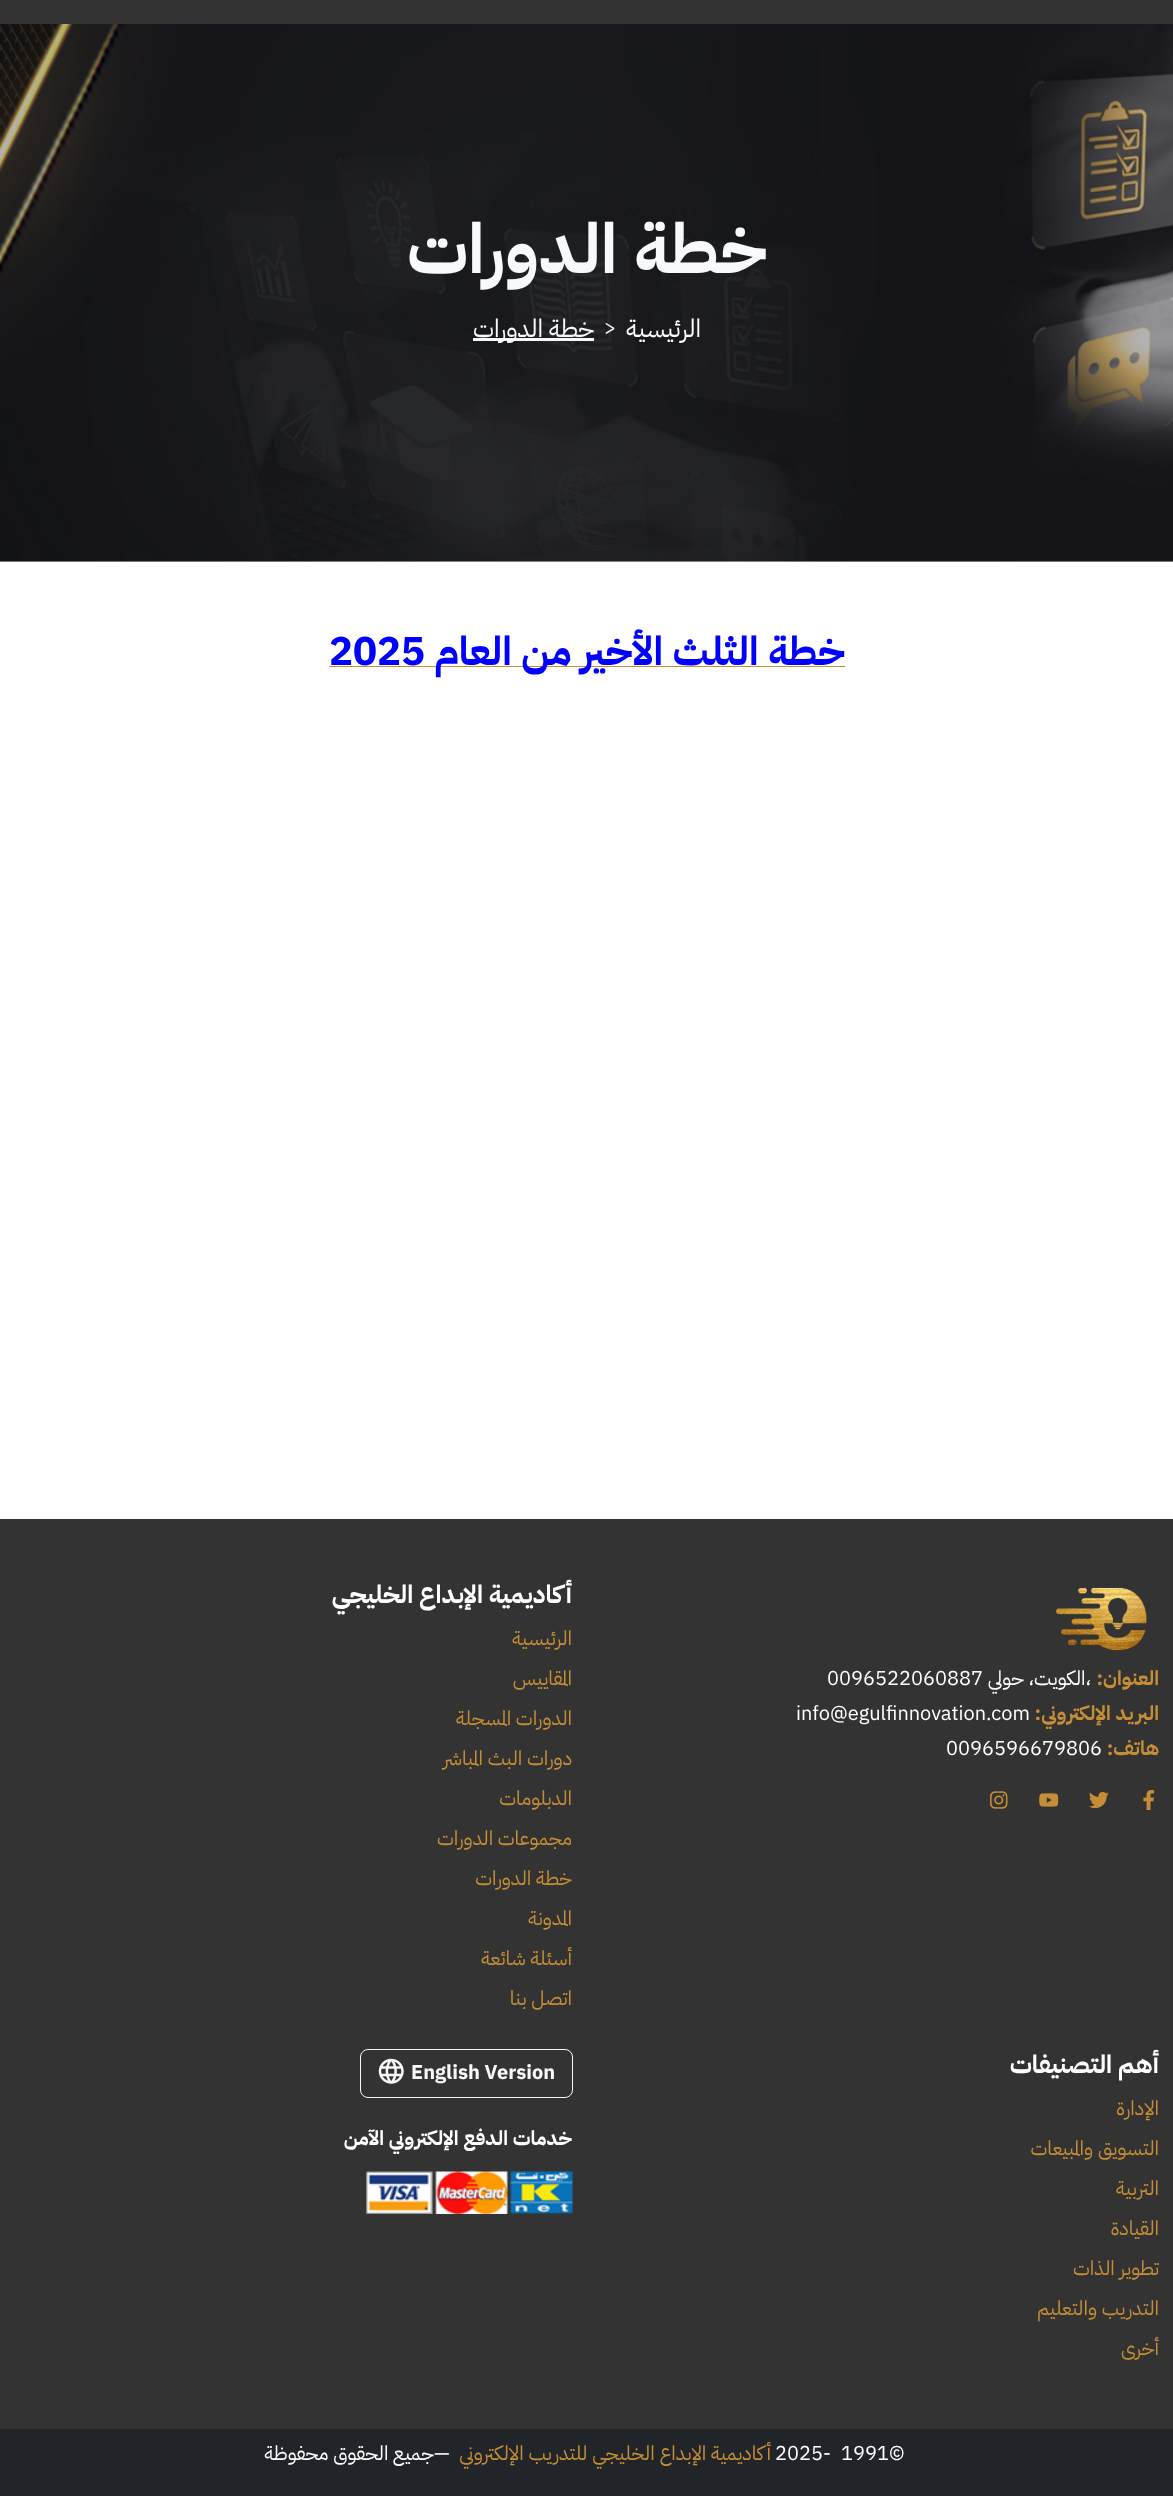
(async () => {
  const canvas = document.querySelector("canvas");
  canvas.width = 1173;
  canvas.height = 2496;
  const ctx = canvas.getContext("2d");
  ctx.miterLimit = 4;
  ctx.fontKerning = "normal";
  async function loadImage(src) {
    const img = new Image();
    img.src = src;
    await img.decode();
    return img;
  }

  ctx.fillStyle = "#ffffff";
  ctx.fillRect(0, 0, 1173, 2496);
  ctx.fillStyle = "#333333";
  ctx.fillRect(0, 0, 1173, 24);
  ctx.drawImage(await loadImage("img/1.png"), 0, 24, 1173, 538);
  for (const [x, y, w, h, color] of [
    [473, 338, 121, 3, "#f8f9fa"],
    [329, 666, 516, 1, "#c58e36"],
    [0, 1519, 1173, 910, "#333333"],
  ]) {
    ctx.fillStyle = color;
    ctx.fillRect(x, y, w, h);
  }
  ctx.drawImage(await loadImage("img/2.png"), 1056, 1587, 91, 64);
  ctx.drawImage(await loadImage("img/3.png"), 1143, 1790, 12, 20);
  ctx.drawImage(await loadImage("img/4.png"), 1089, 1791, 20, 18);
  ctx.drawImage(await loadImage("img/5.png"), 1039, 1793, 20, 14);
  ctx.drawImage(await loadImage("img/6.png"), 990, 1791, 18, 18);
  ctx.beginPath();
  ctx.roundRect(360.5, 2049.5, 212, 48, 7.5);
  ctx.strokeStyle = "#f8f9fa";
  ctx.stroke();
  ctx.drawImage(await loadImage("img/7.png"), 378, 2058, 26, 26);
  ctx.drawImage(await loadImage("img/8.png"), 366, 2171, 207, 43);
  ctx.fillStyle = "#212529";
  ctx.fillRect(0, 2429, 1173, 67);
  ctx.direction = "rtl";
  ctx.font = "bold 69.25px IBM Plex Sans Arabic";
  ctx.fillStyle = "#f8f9fa";
  ctx.fillText("خطة الدورات", 767, 273);
  ctx.font = "25px IBM Plex Sans Arabic";
  ctx.fillStyle = "#ffffff";
  ctx.fillText("الرئيسية", 701, 337);
  ctx.direction = "ltr";
  ctx.font = "20px IBM Plex Sans Arabic";
  ctx.fillStyle = "#f8f9fa";
  ctx.fillText(">", 604, 334);
  ctx.direction = "rtl";
  ctx.font = "25px IBM Plex Sans Arabic";
  ctx.fillText("خطة الدورات", 594, 337);
  ctx.font = "bold 40px IBM Plex Sans Arabic";
  ctx.fillStyle = "#0000ff";
  ctx.fillText("خطة الثلث الأخير من العام", 845, 665);
  ctx.direction = "ltr";
  ctx.fillText("2025", 329, 665);
  ctx.direction = "rtl";
  ctx.font = "bold 20px IBM Plex Sans Arabic";
  ctx.fillStyle = "#c58e36";
  ctx.fillText("العنوان:", 1159, 1685);
  ctx.font = "20px IBM Plex Sans Arabic";
  ctx.fillStyle = "#ffffff";
  ctx.fillText("،الكويت، حولي", 1091, 1685);
  ctx.direction = "ltr";
  ctx.fillText("0096522060887", 827, 1685);
  ctx.direction = "rtl";
  ctx.font = "bold 20px IBM Plex Sans Arabic";
  ctx.fillStyle = "#c58e36";
  ctx.fillText("البريد الإلكتروني:", 1159, 1720);
  ctx.direction = "ltr";
  ctx.font = "20px IBM Plex Sans Arabic";
  ctx.fillStyle = "#ffffff";
  ctx.fillText("info@egulfinnovation.com", 796, 1720);
  ctx.direction = "rtl";
  ctx.font = "bold 20px IBM Plex Sans Arabic";
  ctx.fillStyle = "#c58e36";
  ctx.fillText("هاتف:", 1159, 1755);
  ctx.direction = "ltr";
  ctx.font = "20px IBM Plex Sans Arabic";
  ctx.fillStyle = "#ffffff";
  ctx.fillText("0096596679806", 946, 1755);
  ctx.direction = "rtl";
  ctx.font = "bold 25px IBM Plex Sans Arabic";
  ctx.fillText("أكاديمية الإبداع الخليجي", 572, 1603);
  ctx.font = "20px IBM Plex Sans Arabic";
  ctx.fillStyle = "#c58e36";
  for (const [text, x, y] of [
    ["الرئيسية", 572, 1645],
    ["المقاييس", 572, 1685],
    ["الدورات المسجلة", 572, 1725],
    ["دورات البث المباشر", 572, 1765],
    ["الدبلومات", 572, 1805],
    ["مجموعات الدورات", 572, 1845],
    ["خطة الدورات", 572, 1885],
    ["المدونة", 572, 1925],
    ["أسئلة شائعة", 572, 1965],
    ["اتصل بنا", 572, 2005],
  ]) {
    ctx.fillText(text, x, y);
  }
  ctx.font = "bold 25px IBM Plex Sans Arabic";
  ctx.fillStyle = "#ffffff";
  ctx.fillText("أهم التصنيفات", 1159, 2073);
  ctx.font = "20px IBM Plex Sans Arabic";
  ctx.fillStyle = "#c58e36";
  for (const [text, x, y] of [
    ["الإدارة", 1159, 2115],
    ["التسويق والمبيعات", 1159, 2155],
    ["التربية", 1159, 2195],
    ["القيادة", 1159, 2235],
    ["تطوير الذات", 1159, 2275],
    ["التدريب والتعليم", 1159, 2315],
    ["أخرى", 1159, 2355],
  ]) {
    ctx.fillText(text, x, y);
  }
  ctx.direction = "ltr";
  ctx.font = "bold 20px IBM Plex Sans Arabic";
  ctx.fillStyle = "#f8f9fa";
  ctx.fillText("English Version", 411, 2079);
  ctx.direction = "rtl";
  ctx.fillStyle = "#ffffff";
  ctx.fillText("خدمات الدفع الإلكتروني الآمن", 572, 2145);
  ctx.direction = "ltr";
  ctx.font = "20px IBM Plex Sans Arabic";
  ctx.fillText("1991©", 841, 2460);
  ctx.fillText("2025-", 775, 2460);
  ctx.direction = "rtl";
  ctx.fillStyle = "#c58e36";
  ctx.fillText("أكاديمية الإبداع الخليجي للتدريب الإلكتروني", 771, 2460);
  ctx.direction = "ltr";
  ctx.fillStyle = "#ffffff";
  ctx.fillText("—", 434, 2460);
  ctx.direction = "rtl";
  ctx.fillText("جميع الحقوق محفوظة", 434, 2460);
})();
